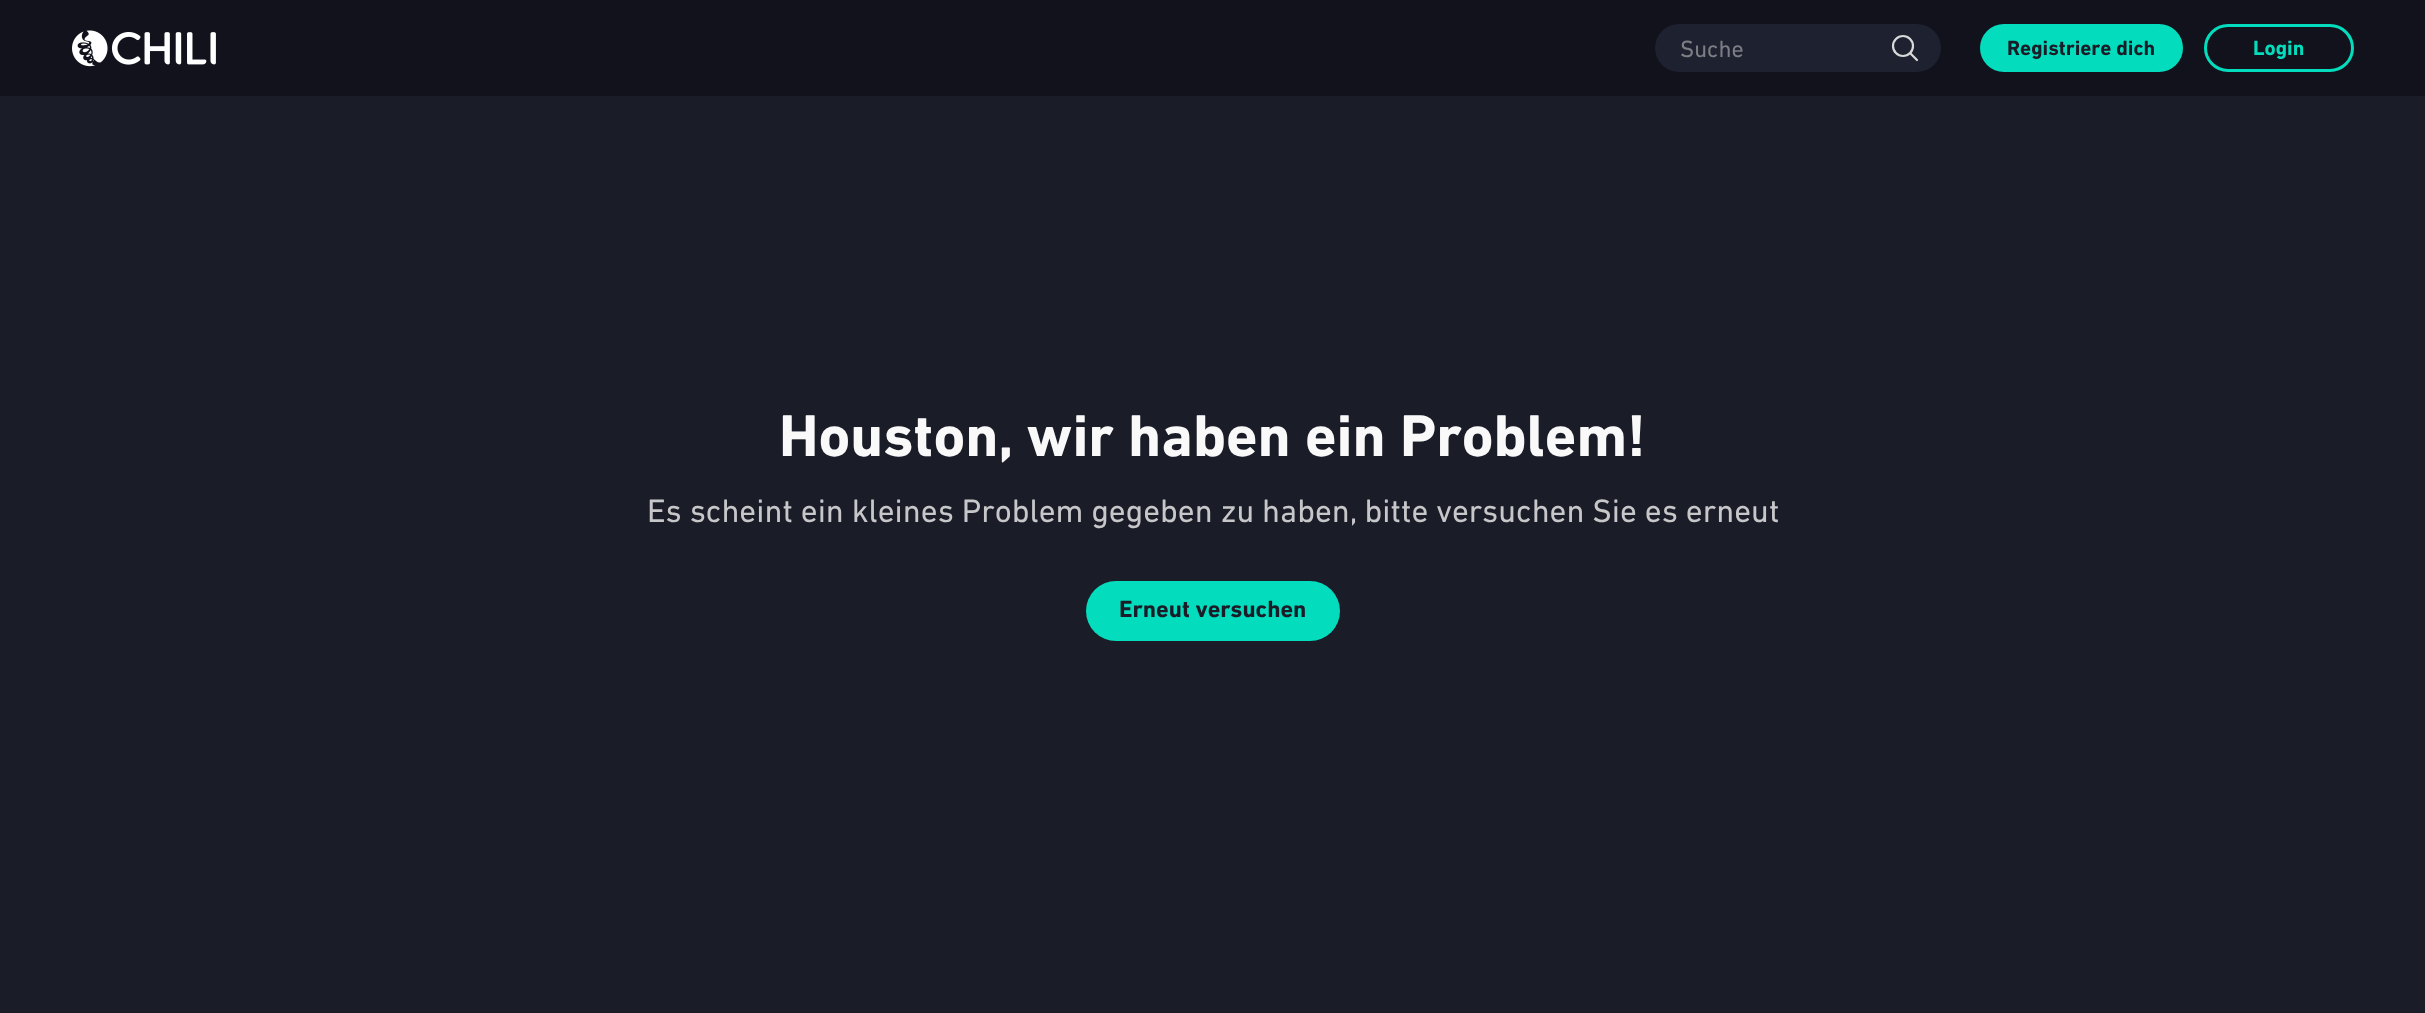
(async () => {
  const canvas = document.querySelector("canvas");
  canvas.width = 2425;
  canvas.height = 1013;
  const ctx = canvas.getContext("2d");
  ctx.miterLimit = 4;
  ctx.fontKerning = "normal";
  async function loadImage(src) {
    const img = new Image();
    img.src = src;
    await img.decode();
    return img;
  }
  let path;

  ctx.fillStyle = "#1a1c28";
  ctx.fillRect(0, 0, 2425, 1013);
  ctx.fillStyle = "#11121b";
  ctx.fillRect(0, 0, 2425, 96);
  ctx.drawImage(await loadImage("img/1.png"), 72, 30, 144, 37);
  ctx.fillStyle = "#1e212f";
  ctx.beginPath();
  ctx.roundRect(1655, 24, 286, 48, 24);
  ctx.fill();
  path = new Path2D("M1917 60L1910.5 53.5");
  ctx.strokeStyle = "#d8dada";
  ctx.lineWidth = 2.2;
  ctx.lineCap = "round";
  ctx.stroke(path);
  ctx.beginPath();
  ctx.arc(1903, 46, 10, 0, Math.PI * 2);
  ctx.stroke();
  ctx.fillStyle = "#03ddbd";
  ctx.beginPath();
  ctx.roundRect(1980, 24, 203, 48, 24);
  ctx.fill();
  ctx.beginPath();
  ctx.roundRect(2205.5, 25.5, 147, 45, 22.5);
  ctx.strokeStyle = "#03ddbd";
  ctx.lineWidth = 3;
  ctx.stroke();
  ctx.beginPath();
  ctx.roundRect(1086, 581, 254, 60, 30);
  ctx.fill();
  ctx.font = "24px DIN Next";
  ctx.fillStyle = "#7d7d84";
  ctx.fillText("Suche", 1680, 57);
  ctx.font = "bold 21px DIN Next";
  ctx.fillStyle = "#1a1c28";
  ctx.fillText("Registriere dich", 2007, 55);
  ctx.fillStyle = "#03ddbd";
  ctx.fillText("Login", 2253, 55);
  ctx.font = "bold 60px DIN Next";
  ctx.fillStyle = "#f9f9f9";
  ctx.fillText("Houston, wir haben ein Problem!", 779, 456);
  ctx.font = "33px DIN Next";
  ctx.fillStyle = "#c7c7ca";
  ctx.fillText("Es scheint ein kleines Problem gegeben zu haben, bitte versuchen Sie es erneut", 647, 522);
  ctx.font = "bold 24px DIN Next";
  ctx.fillStyle = "#1a1c28";
  ctx.fillText("Erneut versuchen", 1119, 617);
})();
